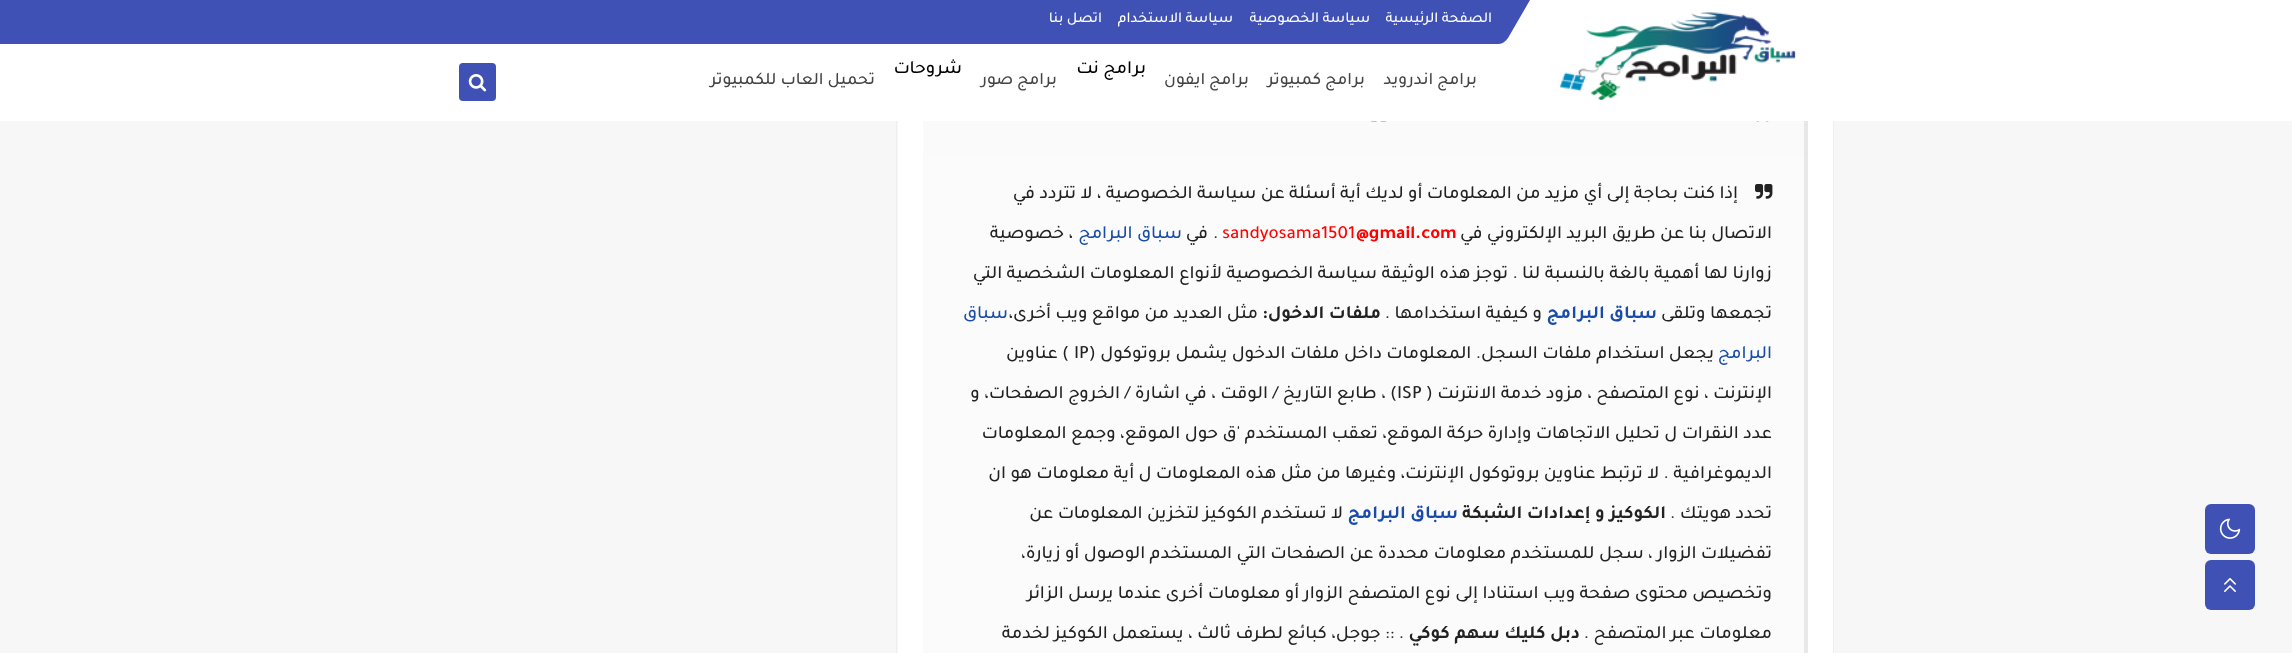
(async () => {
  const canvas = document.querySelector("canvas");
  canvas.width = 2292;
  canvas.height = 653;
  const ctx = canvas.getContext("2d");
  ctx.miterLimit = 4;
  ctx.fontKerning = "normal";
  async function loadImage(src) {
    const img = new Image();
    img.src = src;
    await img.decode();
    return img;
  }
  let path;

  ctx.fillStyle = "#f7f7f7";
  ctx.fillRect(0, 0, 2292, 653);
  ctx.strokeStyle = "#eeeeee";
  ctx.strokeRect(896.5, -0.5, 937, 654);
  ctx.fillStyle = "#ffffff";
  ctx.fillRect(0, 0, 2292, 121);
  ctx.fillStyle = "#3f51b5";
  path = new Path2D("M-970 0H1530L1508 38C1506 41 1502 44 1499 44H-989C-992 44-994 41-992 38Z");
  ctx.fill(path);
  ctx.drawImage(await loadImage("img/1.png"), 1559, 12, 237, 88);
  ctx.beginPath();
  ctx.roundRect(459, 63, 37, 38, 4);
  ctx.fill();
  ctx.drawImage(await loadImage("img/2.png"), 468, 74, 19, 18);
  ctx.beginPath();
  ctx.roundRect(2205, 504, 50, 50, 6);
  ctx.fill();
  ctx.drawImage(await loadImage("img/3.png"), 2219, 518, 22, 21);
  ctx.beginPath();
  ctx.roundRect(2205, 560, 50, 50, 6);
  ctx.fill();
  ctx.drawImage(await loadImage("img/4.png"), 2224, 578, 12, 14);
  for (const [x, y, w, h, color] of [
    [898, 121, 935, 532, "#ffffff"],
    [923, 121, 881, 37, "#fafafa"],
    [1804, 121, 4, 37, "#e7e7e7"],
  ]) {
    ctx.fillStyle = color;
    ctx.fillRect(x, y, w, h);
  }
  ctx.drawImage(await loadImage("img/5.png"), 1756, 121, 13, 1);
  ctx.drawImage(await loadImage("img/6.png"), 1371, 121, 16, 1);
  ctx.fillStyle = "#fbfbfb";
  ctx.fillRect(923, 158, 881, 495);
  ctx.fillStyle = "#e8e8e8";
  ctx.fillRect(1804, 158, 4, 495);
  ctx.drawImage(await loadImage("img/7.png"), 1755, 184, 18, 15);
  ctx.direction = "rtl";
  ctx.font = "500 15px Tajawal";
  ctx.fillStyle = "#ffffff";
  for (const [text, x, y] of [
    ["الصفحة الرئيسية", 1492, 22],
    ["سياسة الخصوصية", 1370, 22],
    ["سياسة الاستخدام", 1233, 22],
    ["اتصل بنا", 1102, 22],
  ]) {
    ctx.fillText(text, x, y);
  }
  ctx.font = "500 17.5px Tajawal";
  ctx.fillStyle = "#444444";
  for (const [text, x, y] of [
    ["برامج اندرويد", 1477, 84],
    ["برامج كمبيوتر", 1365, 84],
    ["برامج ايفون", 1249, 84],
  ]) {
    ctx.fillText(text, x, y);
  }
  ctx.font = "500 18.75px Tajawal";
  ctx.fillStyle = "#000000";
  ctx.fillText("برامج نت", 1146, 73);
  ctx.font = "500 17.5px Tajawal";
  ctx.fillStyle = "#444444";
  ctx.fillText("برامج صور", 1057, 84);
  ctx.font = "500 18.75px Tajawal";
  ctx.fillStyle = "#000000";
  ctx.fillText("شروحات", 962, 73);
  ctx.font = "500 17.5px Tajawal";
  ctx.fillStyle = "#444444";
  ctx.fillText("تحميل العاب للكمبيوتر", 875, 84);
  ctx.font = "500 18.75px Tajawal";
  ctx.fillStyle = "#222222";
  ctx.fillText("إذا كنت بحاجة إلى أي مزيد من المعلومات أو لديك أية أسئلة عن سياسة الخصوصية ، لا تتردد في", 1738, 198);
  ctx.fillText("الاتصال بنا عن طريق البريد الإلكتروني في", 1772, 238);
  ctx.direction = "ltr";
  ctx.font = "bold 18.75px Tajawal";
  ctx.fillStyle = "#ff0000";
  ctx.fillText("@gmail.com", 1356, 238);
  ctx.font = "500 18.75px Tajawal";
  ctx.fillText("sandyosama1501", 1222, 238);
  ctx.fillStyle = "#222222";
  ctx.fillText(".", 1213, 238);
  ctx.direction = "rtl";
  ctx.fillText("في", 1208, 238);
  ctx.fillStyle = "#194ca9";
  ctx.fillText("سباق البرامج", 1182, 238);
  ctx.fillStyle = "#222222";
  for (const [text, x, y] of [
    ["، خصوصية", 1073, 238],
    ["زوارنا لها أهمية بالغة بالنسبة لنا . توجز هذه الوثيقة سياسة الخصوصية لأنواع المعلومات الشخصية التي", 1772, 278],
    ["تجمعها وتلقى", 1772, 318],
  ]) {
    ctx.fillText(text, x, y);
  }
  ctx.font = "bold 18.75px Tajawal";
  ctx.fillStyle = "#194ca9";
  ctx.fillText("سباق البرامج", 1657, 318);
  ctx.font = "500 18.75px Tajawal";
  ctx.fillStyle = "#222222";
  ctx.fillText("و كيفية استخدامها .", 1542, 318);
  ctx.font = "bold 18.75px Tajawal";
  ctx.fillText("ملفات الدخول:", 1381, 318);
  ctx.font = "500 18.75px Tajawal";
  ctx.fillText("مثل العديد من مواقع ويب أخرى،", 1258, 318);
  ctx.fillStyle = "#194ca9";
  ctx.fillText("سباق", 1008, 318);
  ctx.fillText("البرامج", 1772, 358);
  ctx.fillStyle = "#222222";
  ctx.fillText("يجعل استخدام ملفات السجل. المعلومات داخل ملفات الدخول يشمل بروتوكول (", 1714, 358);
  ctx.direction = "ltr";
  ctx.fillText("IP", 1074, 358);
  ctx.direction = "rtl";
  ctx.fillText(") عناوين", 1069, 358);
  ctx.fillText("الإنترنت ، نوع المتصفح ، مزود خدمة الانترنت (", 1772, 398);
  ctx.direction = "ltr";
  ctx.fillText("ISP", 1397, 398);
  ctx.direction = "rtl";
  for (const [text, x, y] of [
    [") ، طابع التاريخ / الوقت ، في اشارة / الخروج الصفحات، و", 1397, 398],
    ["عدد النقرات ل تحليل الاتجاهات وإدارة حركة الموقع، تعقب المستخدم 'ق حول الموقع، وجمع المعلومات", 1772, 438],
    ["الديموغرافية . لا ترتبط عناوين بروتوكول الإنترنت، وغيرها من مثل هذه المعلومات ل أية معلومات هو ان", 1772, 478],
    ["تحدد هويتك .", 1772, 518],
  ]) {
    ctx.fillText(text, x, y);
  }
  ctx.font = "bold 18.75px Tajawal";
  ctx.fillText("الكوكيز و إعدادات الشبكة", 1666, 518);
  ctx.fillStyle = "#194ca9";
  ctx.fillText("سباق البرامج", 1458, 518);
  ctx.font = "500 18.75px Tajawal";
  ctx.fillStyle = "#222222";
  for (const [text, x, y] of [
    ["لا تستخدم الكوكيز لتخزين المعلومات عن", 1343, 518],
    ["تفضيلات الزوار ، سجل للمستخدم معلومات محددة عن الصفحات التي المستخدم الوصول أو زيارة،", 1772, 558],
    ["وتخصيص محتوى صفحة ويب استنادا إلى نوع المتصفح الزوار أو معلومات أخرى عندما يرسل الزائر", 1772, 598],
    ["معلومات عبر المتصفح .", 1772, 638],
  ]) {
    ctx.fillText(text, x, y);
  }
  ctx.font = "bold 18.75px Tajawal";
  ctx.fillText("دبل كليك سهم كوكي", 1580, 638);
  ctx.font = "500 18.75px Tajawal";
  ctx.fillText(". :: جوجل، كبائع لطرف ثالث ، يستعمل الكوكيز لخدمة", 1404, 638);
})();
